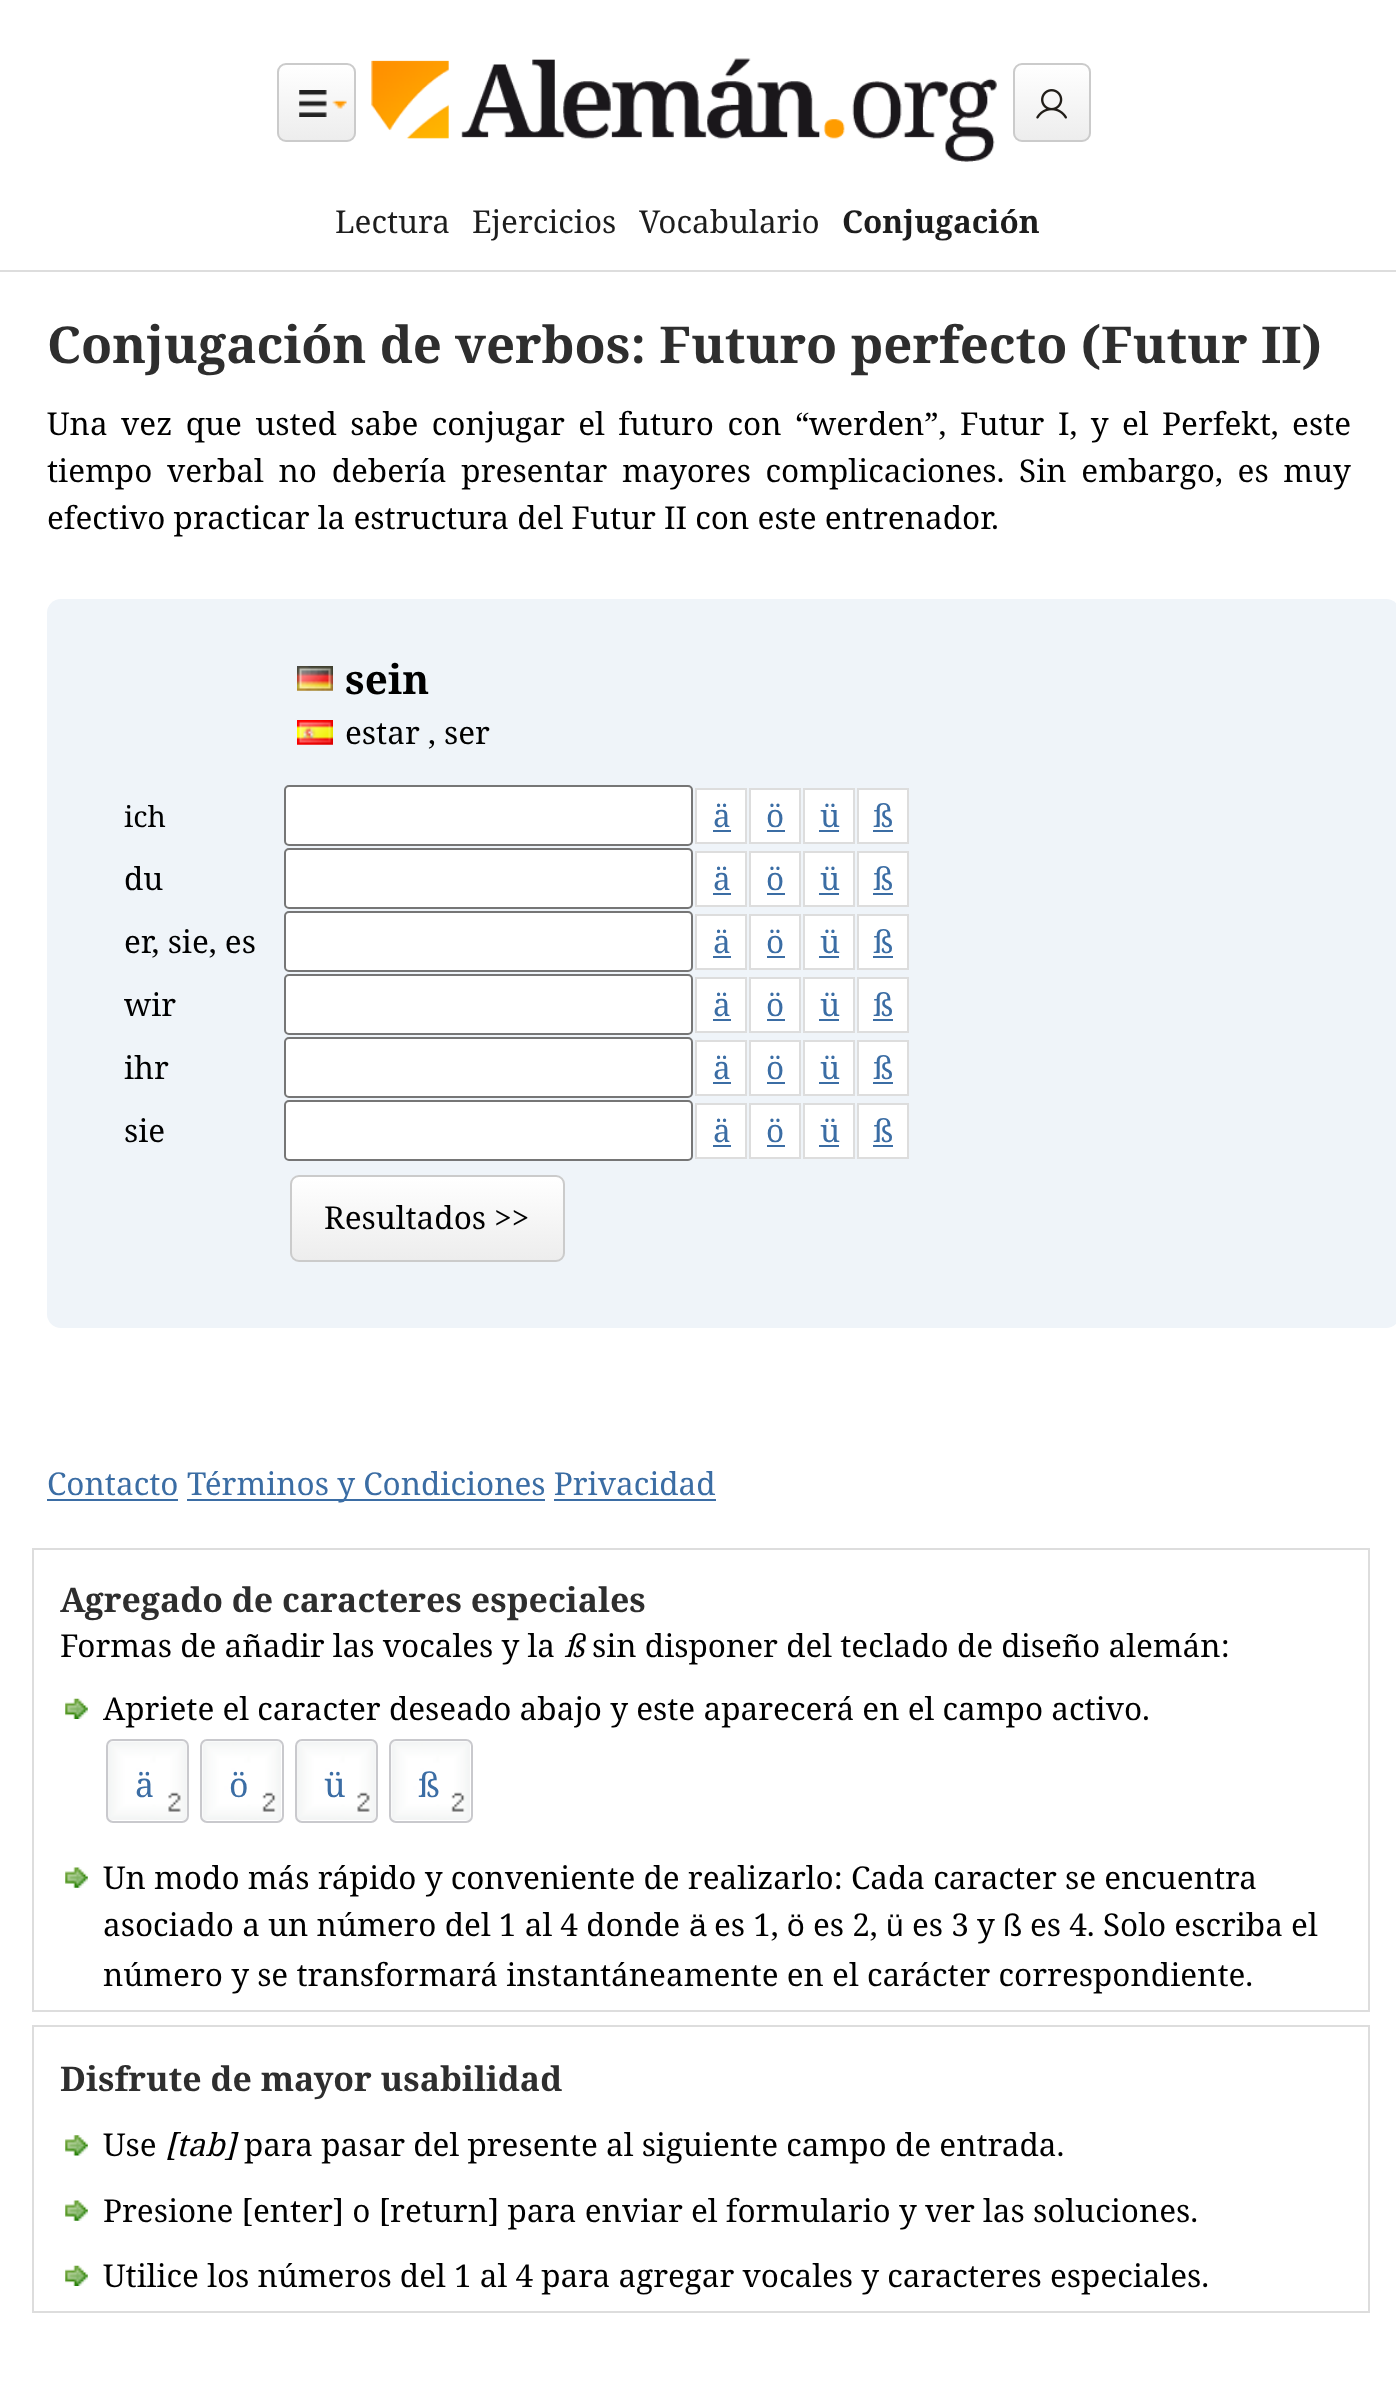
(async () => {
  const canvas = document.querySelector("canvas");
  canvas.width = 1396;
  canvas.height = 2404;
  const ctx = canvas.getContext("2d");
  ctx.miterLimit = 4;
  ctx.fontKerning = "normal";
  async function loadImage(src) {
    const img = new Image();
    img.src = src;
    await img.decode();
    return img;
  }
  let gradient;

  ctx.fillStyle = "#ffffff";
  ctx.fillRect(0, 0, 1396, 2404);
  ctx.fillStyle = "#dddddd";
  ctx.fillRect(0, 270, 1396, 2);
  ctx.save();
  ctx.beginPath();
  ctx.roundRect(277, 63, 79, 79, 9);
  ctx.clip();
  gradient = ctx.createLinearGradient(316, 65, 316, 140);
  gradient.addColorStop(0, "#ffffff");
  gradient.addColorStop(1, "#ededed");
  ctx.fillStyle = gradient;
  ctx.fillRect(277, 65, 79, 75);
  ctx.restore();
  ctx.beginPath();
  ctx.roundRect(278, 64, 77, 77, 8);
  ctx.strokeStyle = "#cbcbcb";
  ctx.lineWidth = 2;
  ctx.stroke();
  ctx.drawImage(await loadImage("img/1.png"), 299, 90, 48, 27);
  ctx.drawImage(await loadImage("img/2.png"), 371, 58, 626, 104);
  ctx.save();
  ctx.beginPath();
  ctx.roundRect(1013, 63, 78, 79, 9);
  ctx.clip();
  gradient = ctx.createLinearGradient(1052, 65, 1052, 140);
  gradient.addColorStop(0, "#ffffff");
  gradient.addColorStop(1, "#ededed");
  ctx.fillStyle = gradient;
  ctx.fillRect(1013, 65, 78, 75);
  ctx.restore();
  ctx.beginPath();
  ctx.roundRect(1014, 64, 76, 77, 8);
  ctx.stroke();
  ctx.drawImage(await loadImage("img/3.png"), 1036, 89, 31, 30);
  ctx.fillStyle = "#eff4f9";
  ctx.beginPath();
  ctx.roundRect(47, 599, 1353, 729, 14);
  ctx.fill();
  ctx.drawImage(await loadImage("img/4.png"), 297, 666, 36, 25);
  ctx.drawImage(await loadImage("img/5.png"), 297, 720, 36, 25);
  ctx.fillStyle = "#ffffff";
  ctx.beginPath();
  ctx.roundRect(285, 786, 407, 59, 4);
  ctx.fill();
  ctx.strokeStyle = "#767676";
  ctx.stroke();
  ctx.beginPath();
  ctx.rect(696, 789, 50, 54);
  ctx.fill();
  ctx.strokeStyle = "#dddddd";
  ctx.stroke();
  ctx.fillStyle = "#3b6da4";
  ctx.fillRect(713, 830, 18, 2);
  ctx.fillStyle = "#ffffff";
  ctx.beginPath();
  ctx.rect(750, 789, 50, 54);
  ctx.fill();
  ctx.stroke();
  ctx.fillStyle = "#3b6da4";
  ctx.fillRect(767, 830, 18, 2);
  ctx.fillStyle = "#ffffff";
  ctx.beginPath();
  ctx.rect(804, 789, 50, 54);
  ctx.fill();
  ctx.stroke();
  ctx.fillStyle = "#3b6da4";
  ctx.fillRect(819, 830, 20, 2);
  ctx.fillStyle = "#ffffff";
  ctx.beginPath();
  ctx.rect(858, 789, 50, 54);
  ctx.fill();
  ctx.stroke();
  ctx.fillStyle = "#3b6da4";
  ctx.fillRect(873, 830, 20, 2);
  ctx.fillStyle = "#ffffff";
  ctx.beginPath();
  ctx.roundRect(285, 849, 407, 59, 4);
  ctx.fill();
  ctx.strokeStyle = "#767676";
  ctx.stroke();
  ctx.beginPath();
  ctx.rect(696, 852, 50, 54);
  ctx.fill();
  ctx.strokeStyle = "#dddddd";
  ctx.stroke();
  ctx.fillStyle = "#3b6da4";
  ctx.fillRect(713, 893, 18, 2);
  ctx.fillStyle = "#ffffff";
  ctx.beginPath();
  ctx.rect(750, 852, 50, 54);
  ctx.fill();
  ctx.stroke();
  ctx.fillStyle = "#3b6da4";
  ctx.fillRect(767, 893, 18, 2);
  ctx.fillStyle = "#ffffff";
  ctx.beginPath();
  ctx.rect(804, 852, 50, 54);
  ctx.fill();
  ctx.stroke();
  ctx.fillStyle = "#3b6da4";
  ctx.fillRect(819, 893, 20, 2);
  ctx.fillStyle = "#ffffff";
  ctx.beginPath();
  ctx.rect(858, 852, 50, 54);
  ctx.fill();
  ctx.stroke();
  ctx.fillStyle = "#3b6da4";
  ctx.fillRect(873, 893, 20, 2);
  ctx.fillStyle = "#ffffff";
  ctx.beginPath();
  ctx.roundRect(285, 912, 407, 59, 4);
  ctx.fill();
  ctx.strokeStyle = "#767676";
  ctx.stroke();
  ctx.beginPath();
  ctx.rect(696, 915, 50, 54);
  ctx.fill();
  ctx.strokeStyle = "#dddddd";
  ctx.stroke();
  ctx.fillStyle = "#3b6da4";
  ctx.fillRect(713, 956, 18, 2);
  ctx.fillStyle = "#ffffff";
  ctx.beginPath();
  ctx.rect(750, 915, 50, 54);
  ctx.fill();
  ctx.stroke();
  ctx.fillStyle = "#3b6da4";
  ctx.fillRect(767, 956, 18, 2);
  ctx.fillStyle = "#ffffff";
  ctx.beginPath();
  ctx.rect(804, 915, 50, 54);
  ctx.fill();
  ctx.stroke();
  ctx.fillStyle = "#3b6da4";
  ctx.fillRect(819, 956, 20, 2);
  ctx.fillStyle = "#ffffff";
  ctx.beginPath();
  ctx.rect(858, 915, 50, 54);
  ctx.fill();
  ctx.stroke();
  ctx.fillStyle = "#3b6da4";
  ctx.fillRect(873, 956, 20, 2);
  ctx.fillStyle = "#ffffff";
  ctx.beginPath();
  ctx.roundRect(285, 975, 407, 59, 4);
  ctx.fill();
  ctx.strokeStyle = "#767676";
  ctx.stroke();
  ctx.beginPath();
  ctx.rect(696, 978, 50, 54);
  ctx.fill();
  ctx.strokeStyle = "#dddddd";
  ctx.stroke();
  ctx.fillStyle = "#3b6da4";
  ctx.fillRect(713, 1019, 18, 2);
  ctx.fillStyle = "#ffffff";
  ctx.beginPath();
  ctx.rect(750, 978, 50, 54);
  ctx.fill();
  ctx.stroke();
  ctx.fillStyle = "#3b6da4";
  ctx.fillRect(767, 1019, 18, 2);
  ctx.fillStyle = "#ffffff";
  ctx.beginPath();
  ctx.rect(804, 978, 50, 54);
  ctx.fill();
  ctx.stroke();
  ctx.fillStyle = "#3b6da4";
  ctx.fillRect(819, 1019, 20, 2);
  ctx.fillStyle = "#ffffff";
  ctx.beginPath();
  ctx.rect(858, 978, 50, 54);
  ctx.fill();
  ctx.stroke();
  ctx.fillStyle = "#3b6da4";
  ctx.fillRect(873, 1019, 20, 2);
  ctx.fillStyle = "#ffffff";
  ctx.beginPath();
  ctx.roundRect(285, 1038, 407, 59, 4);
  ctx.fill();
  ctx.strokeStyle = "#767676";
  ctx.stroke();
  ctx.beginPath();
  ctx.rect(696, 1041, 50, 54);
  ctx.fill();
  ctx.strokeStyle = "#dddddd";
  ctx.stroke();
  ctx.fillStyle = "#3b6da4";
  ctx.fillRect(713, 1082, 18, 2);
  ctx.fillStyle = "#ffffff";
  ctx.beginPath();
  ctx.rect(750, 1041, 50, 54);
  ctx.fill();
  ctx.stroke();
  ctx.fillStyle = "#3b6da4";
  ctx.fillRect(767, 1082, 18, 2);
  ctx.fillStyle = "#ffffff";
  ctx.beginPath();
  ctx.rect(804, 1041, 50, 54);
  ctx.fill();
  ctx.stroke();
  ctx.fillStyle = "#3b6da4";
  ctx.fillRect(819, 1082, 20, 2);
  ctx.fillStyle = "#ffffff";
  ctx.beginPath();
  ctx.rect(858, 1041, 50, 54);
  ctx.fill();
  ctx.stroke();
  ctx.fillStyle = "#3b6da4";
  ctx.fillRect(873, 1082, 20, 2);
  ctx.fillStyle = "#ffffff";
  ctx.beginPath();
  ctx.roundRect(285, 1101, 407, 59, 4);
  ctx.fill();
  ctx.strokeStyle = "#767676";
  ctx.stroke();
  ctx.beginPath();
  ctx.rect(696, 1104, 50, 54);
  ctx.fill();
  ctx.strokeStyle = "#dddddd";
  ctx.stroke();
  ctx.fillStyle = "#3b6da4";
  ctx.fillRect(713, 1145, 18, 2);
  ctx.fillStyle = "#ffffff";
  ctx.beginPath();
  ctx.rect(750, 1104, 50, 54);
  ctx.fill();
  ctx.stroke();
  ctx.fillStyle = "#3b6da4";
  ctx.fillRect(767, 1145, 18, 2);
  ctx.fillStyle = "#ffffff";
  ctx.beginPath();
  ctx.rect(804, 1104, 50, 54);
  ctx.fill();
  ctx.stroke();
  ctx.fillStyle = "#3b6da4";
  ctx.fillRect(819, 1145, 20, 2);
  ctx.fillStyle = "#ffffff";
  ctx.beginPath();
  ctx.rect(858, 1104, 50, 54);
  ctx.fill();
  ctx.stroke();
  ctx.fillStyle = "#3b6da4";
  ctx.fillRect(873, 1145, 20, 2);
  ctx.save();
  ctx.beginPath();
  ctx.roundRect(290, 1175, 275, 87, 9);
  ctx.clip();
  gradient = ctx.createLinearGradient(428, 1177, 428, 1260);
  gradient.addColorStop(0, "#ffffff");
  gradient.addColorStop(1, "#ededed");
  ctx.fillStyle = gradient;
  ctx.fillRect(290, 1177, 275, 83);
  ctx.restore();
  ctx.beginPath();
  ctx.roundRect(291, 1176, 273, 85, 8);
  ctx.strokeStyle = "#cbcbcb";
  ctx.stroke();
  for (const [x, y, w, h, color] of [
    [47, 1499, 131, 2, "#3b6da4"],
    [187, 1499, 358, 2, "#3b6da4"],
    [554, 1499, 162, 2, "#3b6da4"],
  ]) {
    ctx.fillStyle = color;
    ctx.fillRect(x, y, w, h);
  }
  ctx.strokeStyle = "#dddddd";
  ctx.strokeRect(33, 1549, 1336, 462);
  ctx.drawImage(await loadImage("img/6.png"), 65, 1698, 23, 21);
  ctx.drawImage(await loadImage("img/7.png"), 108, 1741, 79, 79);
  ctx.beginPath();
  ctx.roundRect(107, 1740, 81, 82, 6);
  ctx.strokeStyle = "#c9c9cd";
  ctx.stroke();
  ctx.drawImage(await loadImage("img/8.png"), 202, 1741, 79, 79);
  ctx.beginPath();
  ctx.roundRect(201, 1740, 82, 82, 6);
  ctx.stroke();
  ctx.drawImage(await loadImage("img/9.png"), 297, 1741, 79, 79);
  ctx.beginPath();
  ctx.roundRect(296, 1740, 81, 82, 6);
  ctx.stroke();
  ctx.drawImage(await loadImage("img/8.png"), 391, 1741, 79, 79);
  ctx.beginPath();
  ctx.roundRect(390, 1740, 82, 82, 6);
  ctx.stroke();
  ctx.drawImage(await loadImage("img/10.png"), 65, 1867, 23, 21);
  ctx.strokeStyle = "#dddddd";
  ctx.strokeRect(33, 2026, 1336, 286);
  ctx.drawImage(await loadImage("img/11.png"), 65, 2135, 23, 21);
  ctx.drawImage(await loadImage("img/10.png"), 65, 2200, 23, 21);
  ctx.drawImage(await loadImage("img/6.png"), 65, 2265, 23, 21);
  ctx.font = "31.5px Noto Serif";
  ctx.fillStyle = "#1d1d1d";
  for (const [text, x, y] of [
    ["Lectura", 335, 233],
    ["Ejercicios", 472, 233],
    ["Vocabulario", 639, 233],
  ]) {
    ctx.fillText(text, x, y);
  }
  ctx.font = "bold 31.5px Noto Serif";
  ctx.fillText("Conjugación", 842, 233);
  ctx.font = "bold 50.9px Noto Serif";
  ctx.fillStyle = "#2e2e2e";
  ctx.fillText("Conjugación de verbos: Futuro perfecto (Futur II)", 47, 363);
  ctx.wordSpacing = "5.25px";
  ctx.font = "31.5px Noto Serif";
  ctx.fillStyle = "#000000";
  ctx.fillText("Una vez que usted sabe conjugar el futuro con “werden”, Futur I, y el Perfekt, este", 47, 435);
  ctx.wordSpacing = "6.5px";
  ctx.fillText("tiempo verbal no debería presentar mayores complicaciones. Sin embargo, es muy", 47, 482);
  ctx.wordSpacing = "0px";
  ctx.fillText("efectivo practicar la estructura del Futur II con este entrenador.", 47, 529);
  ctx.font = "bold 40.5px Noto Serif";
  ctx.fillText("sein", 345, 694);
  ctx.font = "31.5px Noto Serif";
  ctx.fillText("estar , ser", 345, 744);
  ctx.font = "29px Noto Serif";
  ctx.fillText("ich", 124, 827);
  ctx.font = "31.5px Noto Serif";
  ctx.fillStyle = "#3b6da4";
  for (const [text, x, y] of [
    ["ä", 713, 827],
    ["ö", 766, 827],
    ["ü", 820, 827],
    ["ß", 873, 827],
  ]) {
    ctx.fillText(text, x, y);
  }
  ctx.fillStyle = "#000000";
  ctx.fillText("du", 124, 890);
  ctx.fillStyle = "#3b6da4";
  for (const [text, x, y] of [
    ["ä", 713, 890],
    ["ö", 766, 890],
    ["ü", 820, 890],
    ["ß", 873, 890],
  ]) {
    ctx.fillText(text, x, y);
  }
  ctx.fillStyle = "#000000";
  ctx.fillText("er, sie, es", 124, 953);
  ctx.fillStyle = "#3b6da4";
  for (const [text, x, y] of [
    ["ä", 713, 953],
    ["ö", 766, 953],
    ["ü", 820, 953],
    ["ß", 873, 953],
  ]) {
    ctx.fillText(text, x, y);
  }
  ctx.fillStyle = "#000000";
  ctx.fillText("wir", 124, 1016);
  ctx.fillStyle = "#3b6da4";
  for (const [text, x, y] of [
    ["ä", 713, 1016],
    ["ö", 766, 1016],
    ["ü", 820, 1016],
    ["ß", 873, 1016],
  ]) {
    ctx.fillText(text, x, y);
  }
  ctx.fillStyle = "#000000";
  ctx.fillText("ihr", 124, 1079);
  ctx.fillStyle = "#3b6da4";
  for (const [text, x, y] of [
    ["ä", 713, 1079],
    ["ö", 766, 1079],
    ["ü", 820, 1079],
    ["ß", 873, 1079],
  ]) {
    ctx.fillText(text, x, y);
  }
  ctx.fillStyle = "#000000";
  ctx.fillText("sie", 124, 1142);
  ctx.fillStyle = "#3b6da4";
  for (const [text, x, y] of [
    ["ä", 713, 1142],
    ["ö", 766, 1142],
    ["ü", 820, 1142],
    ["ß", 873, 1142],
  ]) {
    ctx.fillText(text, x, y);
  }
  ctx.fillStyle = "#000000";
  ctx.fillText("Resultados >>", 324, 1229);
  ctx.fillStyle = "#3b6da4";
  ctx.fillText("Contacto", 47, 1495);
  ctx.fillText("Términos y Condiciones Privacidad", 187, 1495);
  ctx.font = "bold 33.9px Noto Serif";
  ctx.fillStyle = "#2e2e2e";
  ctx.fillText("Agregado de caracteres especiales", 60, 1612);
  ctx.font = "31.5px Noto Serif";
  ctx.fillStyle = "#000000";
  ctx.fillText("Formas de añadir las vocales y la", 60, 1657);
  ctx.font = "italic 31.5px Noto Serif";
  ctx.fillText("ß", 564, 1657);
  ctx.font = "31.5px Noto Serif";
  ctx.fillText("sin disponer del teclado de diseño alemán:", 592, 1657);
  ctx.fillText("Apriete el caracter deseado abajo y este aparecerá en el campo activo.", 103, 1720);
  ctx.font = "33.9px Noto Serif";
  ctx.fillStyle = "#3b6da4";
  for (const [text, x, y] of [
    ["ä", 135, 1797],
    ["ö", 229, 1797],
    ["ü", 324, 1797],
    ["ß", 418, 1797],
  ]) {
    ctx.fillText(text, x, y);
  }
  ctx.font = "31.5px Noto Serif";
  ctx.fillStyle = "#000000";
  ctx.fillText("Un modo más rápido y conveniente de realizarlo: Cada caracter se encuentra", 103, 1889);
  ctx.fillText("asociado a un número del 1 al 4 donde", 103, 1936);
  ctx.font = "31.5px Liberation Sans";
  ctx.fillText("ä", 689, 1936);
  ctx.font = "31.5px Noto Serif";
  ctx.fillText("es 1,", 714, 1936);
  ctx.font = "31.5px Liberation Sans";
  ctx.fillText("ö", 787, 1936);
  ctx.font = "31.5px Noto Serif";
  ctx.fillText("es 2,", 813, 1936);
  ctx.font = "31.5px Liberation Sans";
  ctx.fillText("ü", 886, 1936);
  ctx.font = "31.5px Noto Serif";
  ctx.fillText("es 3 y", 912, 1936);
  ctx.font = "31.5px Liberation Sans";
  ctx.fillText("ß", 1003, 1936);
  ctx.font = "31.5px Noto Serif";
  ctx.fillText("es 4. Solo escriba el", 1030, 1936);
  ctx.fillText("número y se transformará instantáneamente en el carácter correspondiente.", 103, 1986);
  ctx.font = "bold 33.9px Noto Serif";
  ctx.fillStyle = "#2e2e2e";
  ctx.fillText("Disfrute de mayor usabilidad", 60, 2091);
  ctx.font = "31.5px Noto Serif";
  ctx.fillStyle = "#000000";
  ctx.fillText("Use", 103, 2156);
  ctx.font = "italic 31.5px Noto Serif";
  ctx.fillText("[tab]", 165, 2156);
  ctx.font = "31.5px Noto Serif";
  for (const [text, x, y] of [
    ["para pasar del presente al siguiente campo de entrada.", 244, 2156],
    ["Presione [enter] o [return] para enviar el formulario y ver las soluciones.", 103, 2222],
    ["Utilice los números del 1 al 4 para agregar vocales y caracteres especiales.", 103, 2287],
  ]) {
    ctx.fillText(text, x, y);
  }
})();
